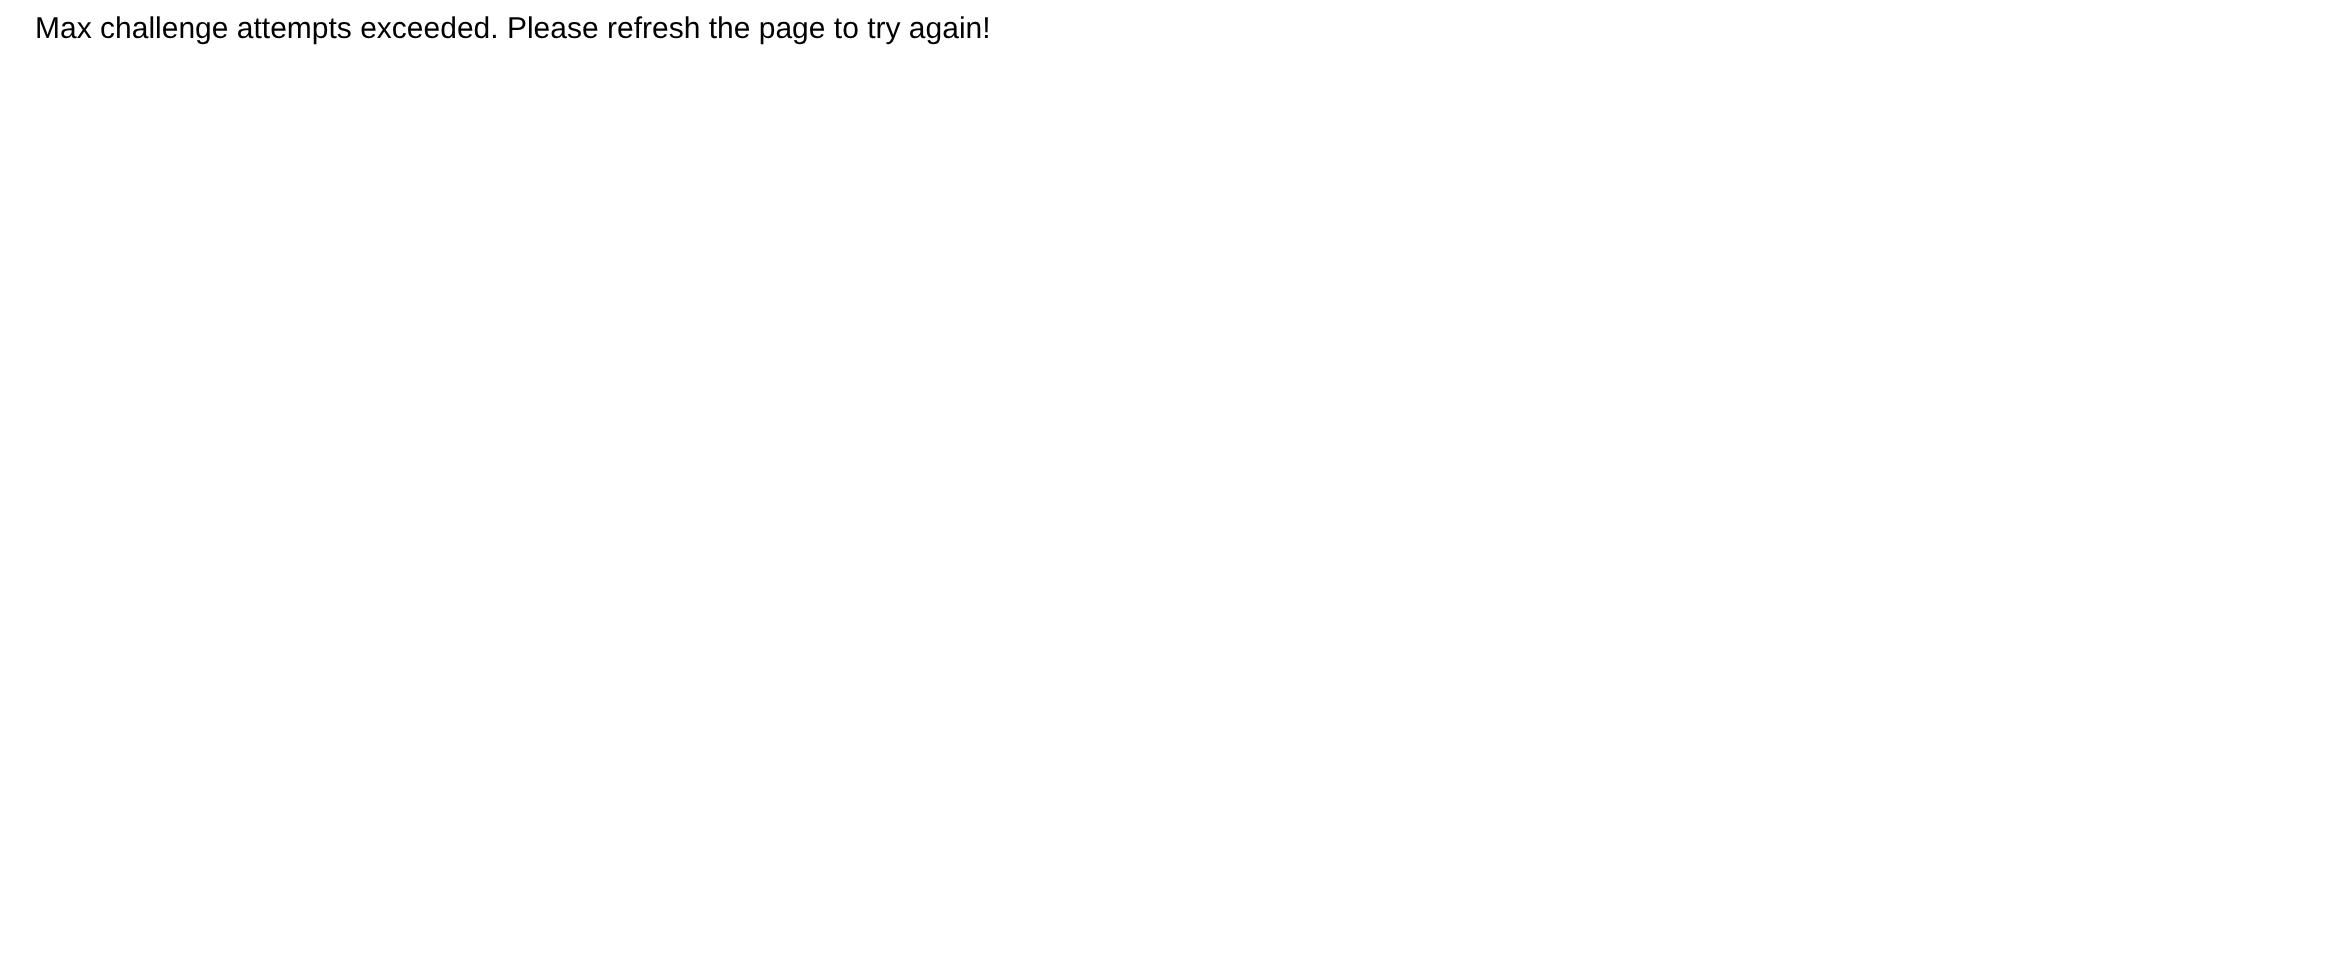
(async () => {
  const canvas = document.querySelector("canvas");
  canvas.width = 2333;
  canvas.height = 970;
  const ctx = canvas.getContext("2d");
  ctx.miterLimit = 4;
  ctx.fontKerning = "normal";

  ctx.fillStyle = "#ffffff";
  ctx.fillRect(0, 0, 2333, 970);
  ctx.font = "30px Liberation Sans";
  ctx.fillStyle = "#000000";
  ctx.fillText("Max challenge attempts exceeded. Please refresh the page to try again!", 35, 38);
})();
